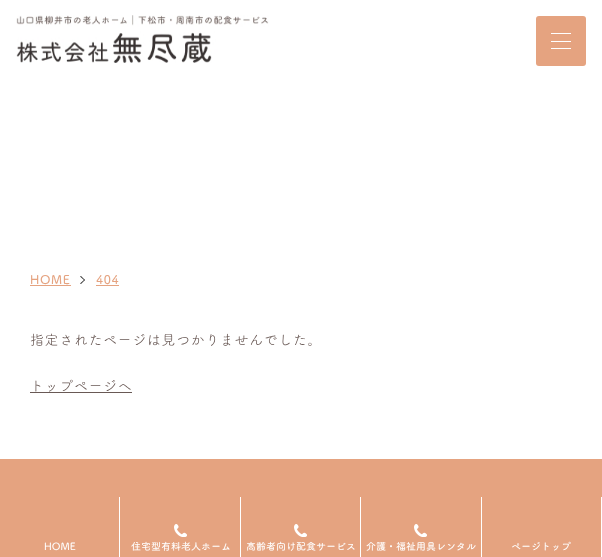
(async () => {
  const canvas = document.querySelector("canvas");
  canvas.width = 602;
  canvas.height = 557;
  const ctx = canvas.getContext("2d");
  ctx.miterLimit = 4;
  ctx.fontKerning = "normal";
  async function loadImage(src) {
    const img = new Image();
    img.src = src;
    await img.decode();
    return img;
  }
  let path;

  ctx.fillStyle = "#e5a380";
  ctx.fillRect(0, 0, 602, 557);
  ctx.fillStyle = "#ffffff";
  ctx.fillRect(0, 0, 602, 459);
  ctx.fillStyle = "#e5a380";
  ctx.fillRect(30, 285, 41, 1);
  ctx.fillStyle = "#333333";
  path = new Path2D("M81 276L85 280L84.5 280.5L80 276.5Z");
  ctx.fill(path);
  path = new Path2D("M84.5 279.5L85 280L81 284L80 283.5Z");
  ctx.fill(path);
  ctx.fillStyle = "#e5a380";
  ctx.fillRect(96, 285, 23, 1);
  ctx.fillStyle = "#695955";
  ctx.fillRect(30, 392, 102, 1);
  ctx.drawImage(await loadImage("img/1.png"), 16, 15, 253, 48);
  ctx.fillStyle = "#e5a380";
  ctx.beginPath();
  ctx.roundRect(536, 16, 50, 50, 3);
  ctx.fill();
  for (const [x, y, w, h, color] of [
    [551, 33, 20, 1, "#ffffff"],
    [551, 41, 20, 1, "#ffffff"],
    [551, 48, 20, 1, "#ffffff"],
    [119, 497, 1, 60, "#ffffff"],
    [240, 497, 1, 60, "#ffffff"],
  ]) {
    ctx.fillStyle = color;
    ctx.fillRect(x, y, w, h);
  }
  ctx.drawImage(await loadImage("img/2.png"), 174, 524, 13, 13);
  ctx.fillRect(360, 497, 1, 60);
  ctx.drawImage(await loadImage("img/2.png"), 294, 524, 13, 13);
  ctx.fillRect(481, 497, 1, 60);
  ctx.drawImage(await loadImage("img/2.png"), 414, 524, 13, 13);
  ctx.fillRect(601, 497, 1, 60);
  ctx.letterSpacing = "0.6px";
  ctx.font = "600 12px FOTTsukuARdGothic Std";
  ctx.fillStyle = "#e5a380";
  ctx.fillText("HOME", 30, 284);
  ctx.fillText("404", 96, 284);
  ctx.font = "14px FOTTsukuARdGothic Std";
  ctx.fillStyle = "#695955";
  ctx.fillText("指定されたページは見つかりませんでした。", 30, 345);
  ctx.fillText("トップページへ", 30, 391);
  ctx.letterSpacing = "0px";
  ctx.font = "600 10px FOTTsukuARdGothic Std";
  ctx.fillStyle = "#ffffff";
  for (const [text, x, y] of [
    ["HOME", 44, 550],
    ["住宅型有料老人ホーム", 131, 550],
    ["高齢者向け配食サービス", 246, 550],
    ["介護・福祉用具レンタル", 366, 550],
    ["ページトップ", 511, 550],
  ]) {
    ctx.fillText(text, x, y);
  }
})();
